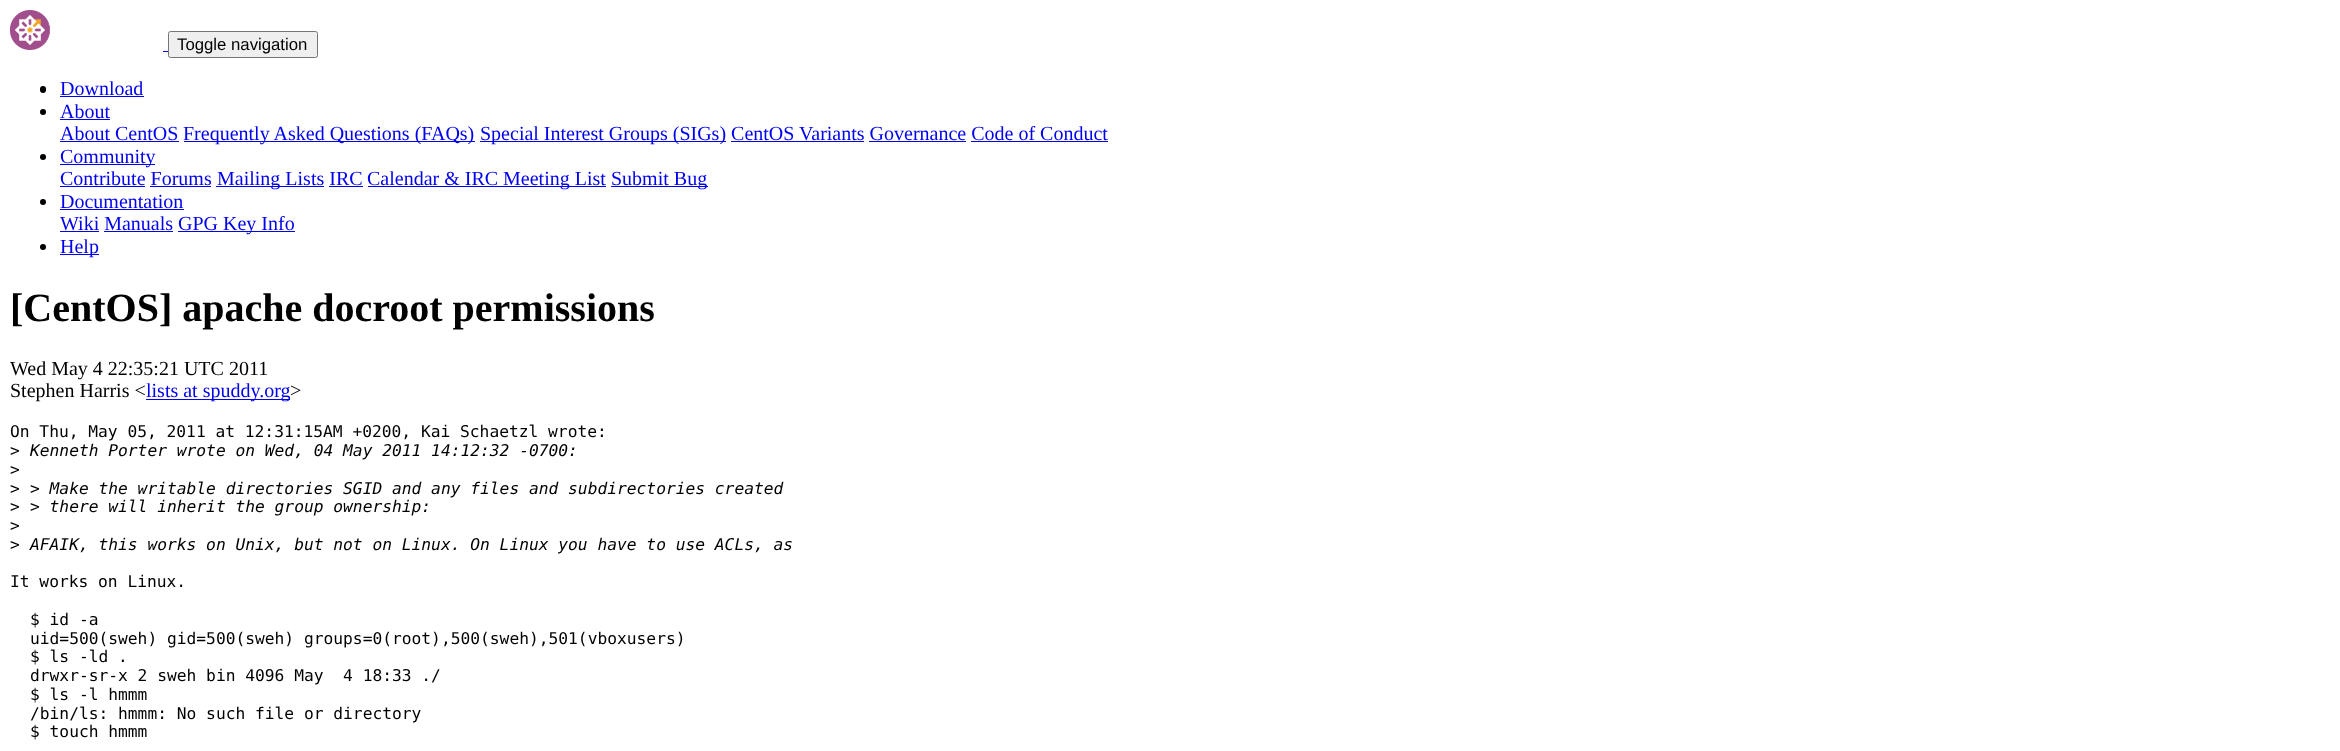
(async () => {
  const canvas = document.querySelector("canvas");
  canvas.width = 2340;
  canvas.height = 751;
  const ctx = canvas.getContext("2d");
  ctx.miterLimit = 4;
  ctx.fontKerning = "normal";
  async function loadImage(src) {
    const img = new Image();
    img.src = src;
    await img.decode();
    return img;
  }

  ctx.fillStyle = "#ffffff";
  ctx.fillRect(0, 0, 2340, 751);
  ctx.drawImage(await loadImage("img/1.png"), 10, 10, 40, 40);
  ctx.fillStyle = "#0000ee";
  ctx.fillRect(163, 51, 5, 1);
  ctx.fillStyle = "#efefef";
  ctx.beginPath();
  ctx.roundRect(168.5, 31.5, 149, 26, 2);
  ctx.fill();
  ctx.strokeStyle = "#767676";
  ctx.stroke();
  ctx.fillStyle = "#000000";
  ctx.beginPath();
  ctx.roundRect(40, 86, 6, 7, 3);
  ctx.fill();
  ctx.fillStyle = "#0000ee";
  ctx.fillRect(60, 96, 84, 1);
  ctx.fillStyle = "#000000";
  ctx.beginPath();
  ctx.arc(43, 112, 3, 0, Math.PI * 2);
  ctx.fill();
  for (const [x, y, w, h, color] of [
    [60, 119, 50, 1, "#0000ee"],
    [60, 141, 119, 1, "#0000ee"],
    [184, 141, 291, 1, "#0000ee"],
    [480, 141, 246, 1, "#0000ee"],
    [731, 141, 133, 1, "#0000ee"],
    [869, 141, 97, 1, "#0000ee"],
    [971, 141, 137, 1, "#0000ee"],
  ]) {
    ctx.fillStyle = color;
    ctx.fillRect(x, y, w, h);
  }
  ctx.fillStyle = "#000000";
  ctx.beginPath();
  ctx.arc(43, 157, 3, 0, Math.PI * 2);
  ctx.fill();
  for (const [x, y, w, h, color] of [
    [60, 164, 95, 1, "#0000ee"],
    [60, 186, 85, 1, "#0000ee"],
    [216, 186, 108, 1, "#0000ee"],
    [368, 186, 238, 1, "#0000ee"],
    [611, 186, 97, 1, "#0000ee"],
    [150, 186, 61, 1, "#0000ee"],
    [329, 186, 34, 1, "#0000ee"],
  ]) {
    ctx.fillStyle = color;
    ctx.fillRect(x, y, w, h);
  }
  ctx.fillStyle = "#000000";
  ctx.beginPath();
  ctx.arc(43, 202, 3, 0, Math.PI * 2);
  ctx.fill();
  for (const [x, y, w, h, color] of [
    [60, 209, 124, 1, "#0000ee"],
    [60, 231, 39, 1, "#0000ee"],
    [178, 231, 117, 1, "#0000ee"],
    [104, 231, 69, 1, "#0000ee"],
  ]) {
    ctx.fillStyle = color;
    ctx.fillRect(x, y, w, h);
  }
  ctx.fillStyle = "#000000";
  ctx.beginPath();
  ctx.arc(43, 247, 3, 0, Math.PI * 2);
  ctx.fill();
  ctx.fillStyle = "#0000ee";
  ctx.fillRect(60, 254, 39, 1);
  ctx.fillRect(146, 399, 144, 1);
  ctx.font = "16.75px Liberation Sans";
  ctx.fillStyle = "#000000";
  ctx.fillText("Toggle navigation", 177, 50);
  ctx.font = "20px Liberation Serif";
  ctx.fillStyle = "#0000ee";
  for (const [text, x, y] of [
    ["Download", 60, 95],
    ["About", 60, 118],
    ["About CentOS", 60, 140],
    ["Frequently Asked Questions (FAQs)", 183, 140],
    ["Special Interest Groups (SIGs) CentOS Variants Governance Code of Conduct", 480, 140],
    ["Community", 60, 163],
    ["Contribute Forums", 60, 185],
    ["Mailing Lists IRC", 217, 185],
    ["Calendar & IRC Meeting List", 367, 185],
    ["Submit Bug", 611, 185],
    ["Documentation", 60, 208],
    ["Wiki Manuals", 60, 230],
    ["GPG Key Info", 178, 230],
    ["Help", 60, 253],
  ]) {
    ctx.fillText(text, x, y);
  }
  ctx.font = "bold 40px Liberation Serif";
  ctx.fillStyle = "#000000";
  ctx.fillText("[CentOS] apache docroot permissions", 10, 321);
  ctx.font = "20px Liberation Serif";
  ctx.fillText("Wed May 4 22:35:21 UTC 2011", 10, 375);
  ctx.fillText("Stephen Harris <", 10, 397);
  ctx.fillStyle = "#0000ee";
  ctx.fillText("lists at spuddy.org", 146, 397);
  ctx.fillStyle = "#000000";
  ctx.fillText(">", 290, 397);
  ctx.font = "16.25px DejaVu Sans Mono";
  ctx.fillText("On Thu, May 05, 2011 at 12:31:15AM +0200, Kai Schaetzl wrote:", 10, 437);
  ctx.fillText(">", 10, 456);
  ctx.font = "italic 16.25px DejaVu Sans Mono";
  ctx.fillText("Kenneth Porter wrote on Wed, 04 May 2011 14:12:32 -0700:", 30, 456);
  ctx.font = "16.25px DejaVu Sans Mono";
  ctx.fillText(">", 10, 475);
  ctx.fillText(">", 10, 494);
  ctx.font = "italic 16.25px DejaVu Sans Mono";
  ctx.fillText("> Make the writable directories SGID and any files and subdirectories created", 30, 494);
  ctx.font = "16.25px DejaVu Sans Mono";
  ctx.fillText(">", 10, 512);
  ctx.font = "italic 16.25px DejaVu Sans Mono";
  ctx.fillText("> there will inherit the group ownership:", 30, 512);
  ctx.font = "16.25px DejaVu Sans Mono";
  ctx.fillText(">", 10, 531);
  ctx.fillText(">", 10, 550);
  ctx.font = "italic 16.25px DejaVu Sans Mono";
  ctx.fillText("AFAIK, this works on Unix, but not on Linux. On Linux you have to use ACLs, as", 30, 550);
  ctx.font = "16.25px DejaVu Sans Mono";
  for (const [text, x, y] of [
    ["It works on Linux.", 10, 587],
    ["$ id -a", 30, 625],
    ["uid=500(sweh) gid=500(sweh) groups=0(root),500(sweh),501(vboxusers)", 30, 644],
    ["$ ls -ld .", 30, 662],
    ["drwxr-sr-x 2 sweh bin 4096 May  4 18:33 ./", 30, 681],
    ["$ ls -l hmmm", 30, 700],
    ["/bin/ls: hmmm: No such file or directory", 30, 719],
    ["$ touch hmmm", 30, 737],
  ]) {
    ctx.fillText(text, x, y);
  }
})();
